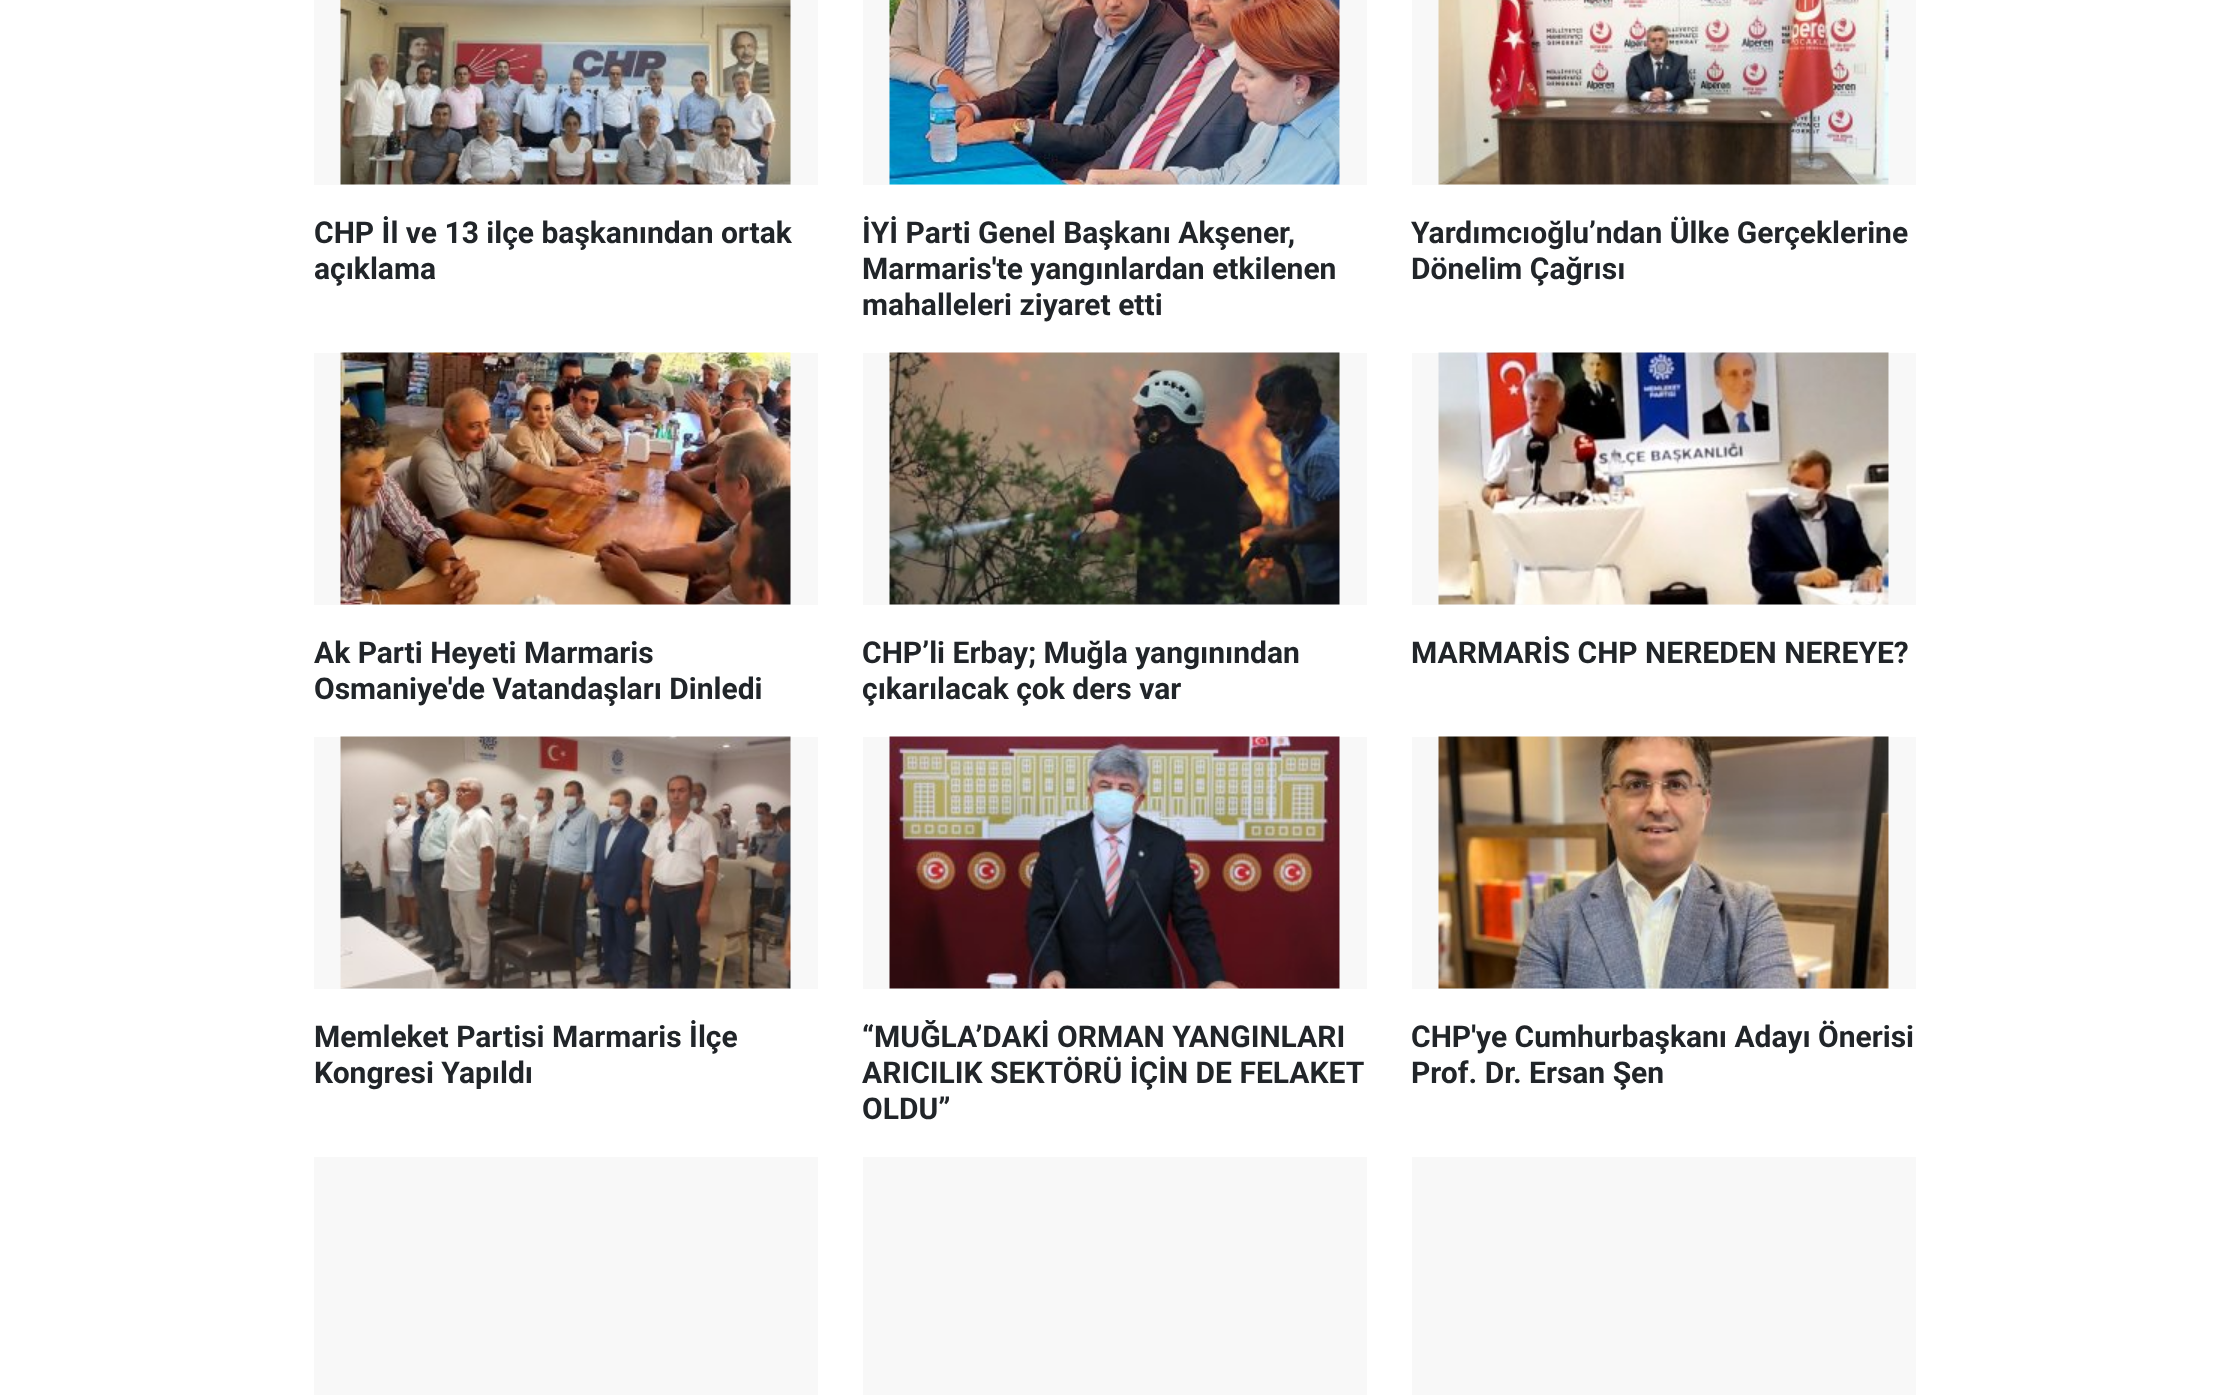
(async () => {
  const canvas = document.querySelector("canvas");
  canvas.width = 2229;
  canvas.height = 1395;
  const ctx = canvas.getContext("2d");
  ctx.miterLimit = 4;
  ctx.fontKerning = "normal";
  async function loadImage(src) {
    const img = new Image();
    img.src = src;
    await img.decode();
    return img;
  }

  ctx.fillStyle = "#ffffff";
  ctx.fillRect(0, 0, 2229, 1395);
  ctx.fillStyle = "#f8f8f8";
  ctx.fillRect(314, 0, 504, 185);
  ctx.drawImage(await loadImage("img/1.png"), 340, 0, 451, 185);
  ctx.fillRect(863, 0, 504, 185);
  ctx.drawImage(await loadImage("img/2.png"), 889, 0, 451, 185);
  ctx.fillRect(1412, 0, 504, 185);
  ctx.drawImage(await loadImage("img/3.png"), 1438, 0, 451, 185);
  ctx.fillRect(314, 353, 504, 252);
  ctx.drawImage(await loadImage("img/4.png"), 340, 352, 451, 253);
  ctx.fillRect(863, 353, 504, 252);
  ctx.drawImage(await loadImage("img/5.png"), 889, 352, 451, 253);
  ctx.fillRect(1412, 353, 504, 252);
  ctx.drawImage(await loadImage("img/6.png"), 1438, 352, 451, 253);
  ctx.fillRect(314, 737, 504, 252);
  ctx.drawImage(await loadImage("img/7.png"), 340, 736, 451, 253);
  ctx.fillRect(863, 737, 504, 252);
  ctx.drawImage(await loadImage("img/8.png"), 889, 736, 451, 253);
  ctx.fillRect(1412, 737, 504, 252);
  ctx.drawImage(await loadImage("img/9.png"), 1438, 736, 451, 253);
  for (const [x, y, w, h, color] of [
    [314, 1157, 504, 238, "#f8f8f8"],
    [863, 1157, 504, 238, "#f8f8f8"],
    [1412, 1157, 504, 238, "#f8f8f8"],
  ]) {
    ctx.fillStyle = color;
    ctx.fillRect(x, y, w, h);
  }
  ctx.font = "bold 30px Roboto";
  ctx.fillStyle = "#212529";
  for (const [text, x, y] of [
    ["CHP İl ve 13 ilçe başkanından ortak", 314, 243],
    ["açıklama", 314, 279],
    ["İYİ Parti Genel Başkanı Akşener,", 862, 243],
    ["Marmaris'te yangınlardan etkilenen", 862, 279],
    ["mahalleleri ziyaret etti", 862, 315],
    ["Yardımcıoğlu’ndan Ülke Gerçeklerine", 1411, 243],
    ["Dönelim Çağrısı", 1411, 279],
    ["Ak Parti Heyeti Marmaris", 314, 663],
    ["Osmaniye'de Vatandaşları Dinledi", 314, 699],
    ["CHP’li Erbay; Muğla yangınından", 862, 663],
    ["çıkarılacak çok ders var", 862, 699],
    ["MARMARİS CHP NEREDEN NEREYE?", 1411, 663],
    ["Memleket Partisi Marmaris İlçe", 314, 1047],
    ["Kongresi Yapıldı", 314, 1083],
    ["“MUĞLA’DAKİ ORMAN YANGINLARI", 862, 1047],
    ["ARICILIK SEKTÖRÜ İÇİN DE FELAKET", 862, 1083],
    ["OLDU”", 862, 1119],
    ["CHP'ye Cumhurbaşkanı Adayı Önerisi", 1411, 1047],
    ["Prof. Dr. Ersan Şen", 1411, 1083],
  ]) {
    ctx.fillText(text, x, y);
  }
})();
